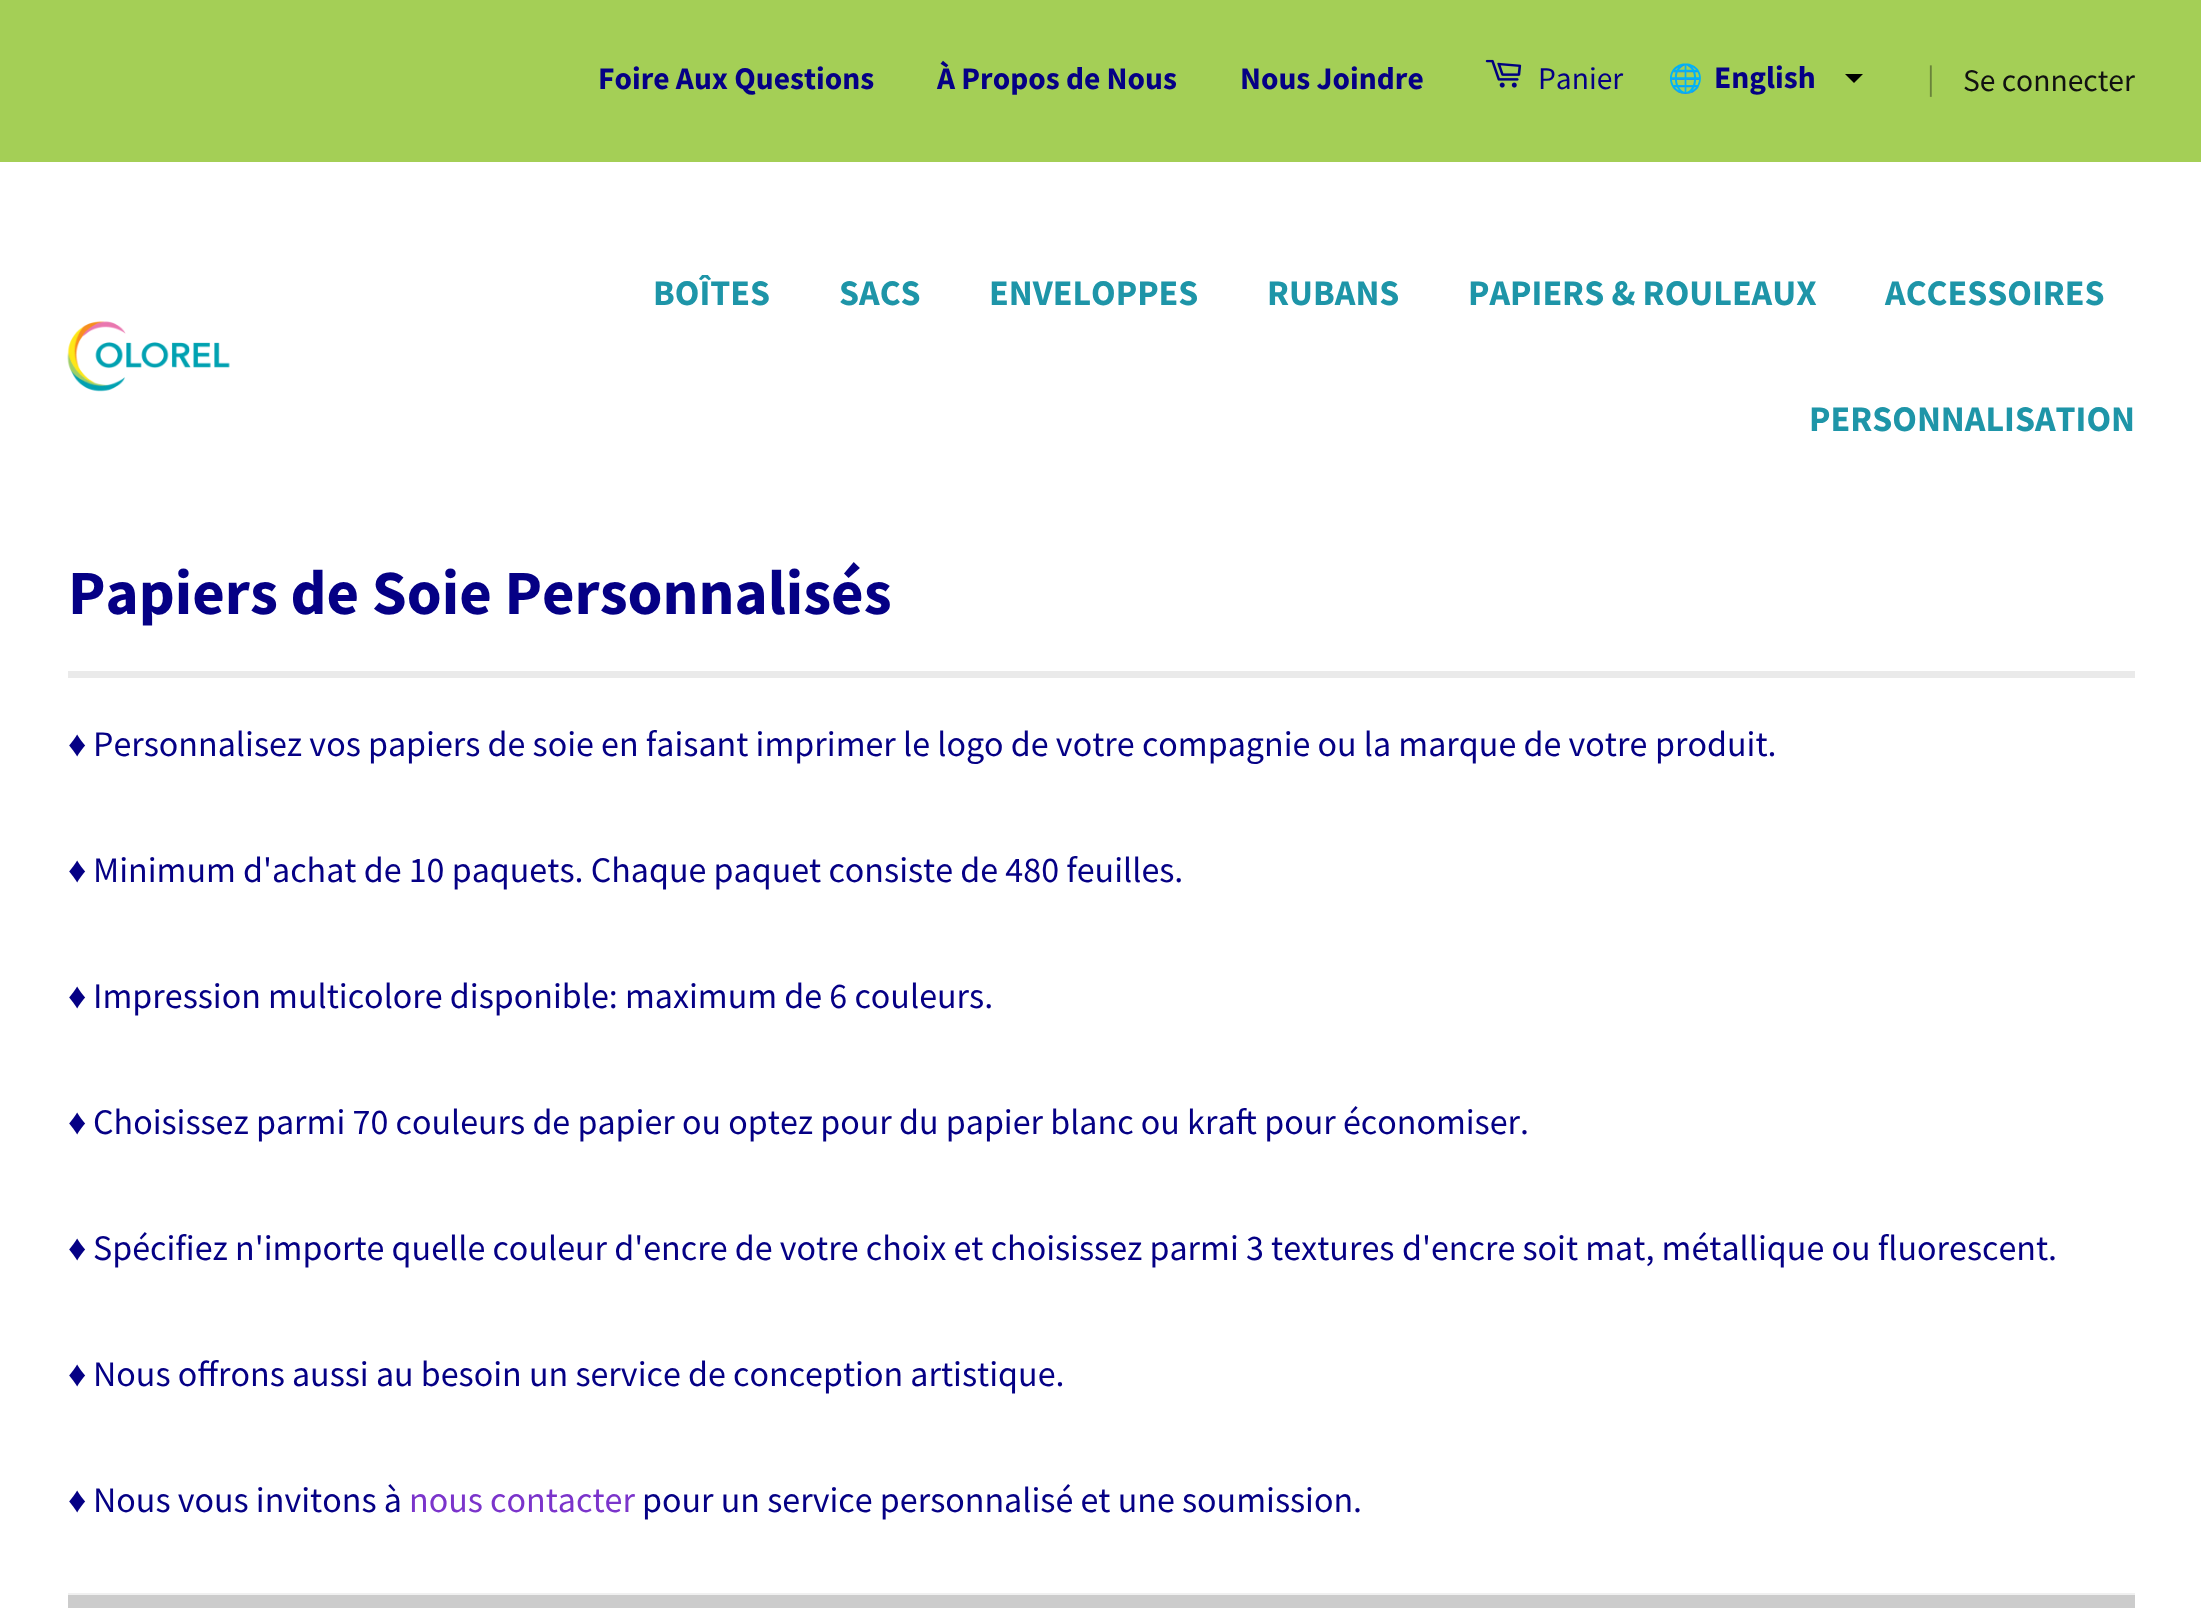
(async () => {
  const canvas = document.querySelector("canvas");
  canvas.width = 2201;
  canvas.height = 1608;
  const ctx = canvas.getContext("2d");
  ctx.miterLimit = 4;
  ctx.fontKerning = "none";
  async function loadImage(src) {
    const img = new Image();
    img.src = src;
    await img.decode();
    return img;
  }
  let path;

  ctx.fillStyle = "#ffffff";
  ctx.fillRect(0, 0, 2201, 1608);
  ctx.fillStyle = "#a4cf56";
  ctx.fillRect(0, 0, 2201, 162);
  ctx.drawImage(await loadImage("img/1.png"), 1485, 59, 37, 29);
  ctx.fillStyle = "#000000";
  path = new Path2D("M1845 74H1863L1854 83Z");
  ctx.fill(path);
  ctx.drawImage(await loadImage("img/2.png"), 67, 321, 163, 71);
  for (const [x, y, w, h, color] of [
    [68, 671, 2067, 7, "#eaeaea"],
    [68, 1595, 2067, 13, "#cccccc"],
    [68, 1593, 2067, 2, "#f0f0f0"],
  ]) {
    ctx.fillStyle = color;
    ctx.fillRect(x, y, w, h);
  }
  ctx.font = "bold 31.5px Source Sans Pro";
  ctx.fillStyle = "#050085";
  for (const [text, x, y] of [
    ["Foire Aux Questions", 598, 89],
    ["À Propos de Nous", 937, 89],
    ["Nous Joindre", 1240, 89],
  ]) {
    ctx.fillText(text, x, y);
  }
  ctx.font = "31.5px Source Sans Pro";
  ctx.fillText("Panier", 1538, 89);
  ctx.font = "bold 28px Noto Color Emoji";
  ctx.fillText("🌐", 1668, 88);
  ctx.font = "bold 31.5px Source Sans Pro";
  ctx.fillText("English", 1714, 88);
  ctx.font = "31.5px Source Sans Pro";
  ctx.fillStyle = "#69833a";
  ctx.fillText("|", 1927, 89);
  ctx.fillStyle = "#111111";
  ctx.fillText("Se connecter", 1963, 91);
  ctx.font = "bold 36px Source Sans Pro";
  ctx.fillStyle = "#1e95a8";
  for (const [text, x, y] of [
    ["BOÎTES", 653, 305],
    ["SACS", 839, 305],
    ["ENVELOPPES", 989, 305],
    ["RUBANS", 1267, 305],
    ["PAPIERS & ROULEAUX", 1468, 305],
    ["ACCESSOIRES", 1885, 305],
    ["PERSONNALISATION", 1809, 431],
  ]) {
    ctx.fillText(text, x, y);
  }
  ctx.font = "bold 63px Source Sans Pro";
  ctx.fillStyle = "#050085";
  ctx.fillText("Papiers de Soie Personnalisés", 68, 614);
  ctx.font = "36px Liberation Sans";
  ctx.fillText("♦", 68, 756);
  ctx.font = "36px Source Sans Pro";
  ctx.fillText("Personnalisez vos papiers de soie en faisant imprimer le logo de votre compagnie ou la marque de votre", 93, 756);
  ctx.fillText("produit.", 1655, 756);
  ctx.font = "36px Liberation Sans";
  ctx.fillText("♦", 68, 882);
  ctx.font = "36px Source Sans Pro";
  ctx.fillText("Minimum d'achat de 10 paquets. Chaque paquet consiste de 480 feuilles.", 93, 882);
  ctx.font = "36px Liberation Sans";
  ctx.fillText("♦", 68, 1008);
  ctx.font = "36px Source Sans Pro";
  ctx.fillText("Impression multicolore disponible: maximum de 6 couleurs.", 93, 1008);
  ctx.font = "36px Liberation Sans";
  ctx.fillText("♦", 68, 1134);
  ctx.font = "36px Source Sans Pro";
  ctx.fillText("Choisissez parmi 70 couleurs de papier ou optez pour du papier blanc ou kraft pour économiser.", 93, 1134);
  ctx.font = "36px Liberation Sans";
  ctx.fillText("♦", 68, 1260);
  ctx.font = "36px Source Sans Pro";
  ctx.fillText("Spécifiez n'importe quelle couleur d'encre de votre choix et choisissez parmi 3 textures", 93, 1260);
  ctx.fillText("d'encre soit mat, métallique ou fluorescent.", 1402, 1260);
  ctx.font = "36px Liberation Sans";
  ctx.fillText("♦", 68, 1386);
  ctx.font = "36px Source Sans Pro";
  ctx.fillText("Nous offrons aussi au besoin un service de conception artistique.", 93, 1386);
  ctx.font = "36px Liberation Sans";
  ctx.fillText("♦", 68, 1512);
  ctx.font = "36px Source Sans Pro";
  ctx.fillText("Nous vous invitons à", 93, 1512);
  ctx.fillStyle = "#7b34cb";
  ctx.fillText("nous contacter", 409, 1512);
  ctx.fillStyle = "#050085";
  ctx.fillText("pour un service personnalisé et une soumission.", 642, 1512);
})();
